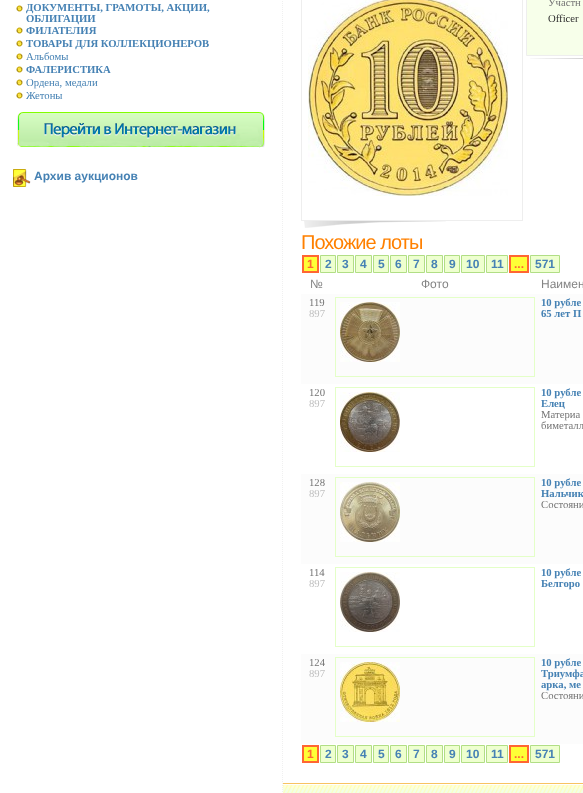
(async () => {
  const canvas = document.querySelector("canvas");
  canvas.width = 583;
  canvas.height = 793;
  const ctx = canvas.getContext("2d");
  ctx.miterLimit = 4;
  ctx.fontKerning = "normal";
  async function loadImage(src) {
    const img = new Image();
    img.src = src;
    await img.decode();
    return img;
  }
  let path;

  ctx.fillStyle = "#ffffff";
  ctx.fillRect(0, 0, 583, 793);
  path = new Path2D("M282.5-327V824");
  ctx.strokeStyle = "#f0f0f0";
  ctx.setLineDash([1, 1]);
  ctx.stroke(path);
  ctx.drawImage(await loadImage("img/1.png"), 16, 5, 7, 7);
  ctx.drawImage(await loadImage("img/1.png"), 16, 27, 7, 7);
  ctx.drawImage(await loadImage("img/1.png"), 16, 40, 7, 7);
  ctx.drawImage(await loadImage("img/1.png"), 16, 53, 7, 7);
  ctx.drawImage(await loadImage("img/1.png"), 16, 66, 7, 7);
  ctx.drawImage(await loadImage("img/1.png"), 16, 79, 7, 7);
  ctx.drawImage(await loadImage("img/1.png"), 16, 92, 7, 7);
  ctx.drawImage(await loadImage("img/2.png"), 17, 112, 248, 36);
  ctx.drawImage(await loadImage("img/3.png"), 13, 169, 18, 18);
  ctx.strokeStyle = "#eeeeee";
  ctx.setLineDash([]);
  ctx.strokeRect(301.5, -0.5, 221, 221);
  ctx.drawImage(await loadImage("img/4.png"), 308, 0, 200, 196);
  ctx.drawImage(await loadImage("img/5.png"), 304, 221, 142, 7);
  ctx.fillStyle = "#f7ffea";
  ctx.beginPath();
  ctx.rect(526.5, -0.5, 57, 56);
  ctx.fill();
  ctx.stroke();
  ctx.drawImage(await loadImage("img/6.png"), 530, 58, 53, 1);
  ctx.fillStyle = "#ffff36";
  ctx.beginPath();
  ctx.rect(303, 256, 15, 16);
  ctx.fill();
  ctx.strokeStyle = "#ff6633";
  ctx.lineWidth = 2;
  ctx.stroke();
  ctx.fillStyle = "#eeffcf";
  ctx.beginPath();
  ctx.rect(320.5, 255.5, 15, 17);
  ctx.fill();
  ctx.strokeStyle = "#b1de85";
  ctx.lineWidth = 1;
  ctx.stroke();
  ctx.beginPath();
  ctx.rect(337.5, 255.5, 16, 17);
  ctx.fill();
  ctx.stroke();
  ctx.beginPath();
  ctx.rect(355.5, 255.5, 16, 17);
  ctx.fill();
  ctx.stroke();
  ctx.beginPath();
  ctx.rect(373.5, 255.5, 15, 17);
  ctx.fill();
  ctx.stroke();
  ctx.beginPath();
  ctx.rect(390.5, 255.5, 16, 17);
  ctx.fill();
  ctx.stroke();
  ctx.beginPath();
  ctx.rect(408.5, 255.5, 16, 17);
  ctx.fill();
  ctx.stroke();
  ctx.beginPath();
  ctx.rect(426.5, 255.5, 16, 17);
  ctx.fill();
  ctx.stroke();
  ctx.beginPath();
  ctx.rect(444.5, 255.5, 15, 17);
  ctx.fill();
  ctx.stroke();
  ctx.beginPath();
  ctx.rect(461.5, 255.5, 23, 17);
  ctx.fill();
  ctx.stroke();
  ctx.beginPath();
  ctx.rect(486.5, 255.5, 21, 17);
  ctx.fill();
  ctx.stroke();
  ctx.fillStyle = "#ffff36";
  ctx.beginPath();
  ctx.rect(510, 256, 18, 16);
  ctx.fill();
  ctx.strokeStyle = "#ff6633";
  ctx.lineWidth = 2;
  ctx.stroke();
  ctx.fillStyle = "#eeffcf";
  ctx.beginPath();
  ctx.rect(530.5, 255.5, 29, 17);
  ctx.fill();
  ctx.strokeStyle = "#b1de85";
  ctx.lineWidth = 1;
  ctx.stroke();
  ctx.fillStyle = "#fcfcfc";
  ctx.fillRect(301, 294, 282, 90);
  ctx.strokeStyle = "#e4ffc8";
  ctx.strokeRect(335.5, 297.5, 199, 79);
  ctx.drawImage(await loadImage("img/7.png"), 340, 302, 60, 60);
  ctx.strokeRect(335.5, 387.5, 199, 79);
  ctx.drawImage(await loadImage("img/8.png"), 340, 392, 60, 60);
  ctx.fillRect(301, 474, 282, 90);
  ctx.strokeRect(335.5, 477.5, 199, 79);
  ctx.drawImage(await loadImage("img/9.png"), 340, 482, 60, 60);
  ctx.strokeRect(335.5, 567.5, 199, 79);
  ctx.drawImage(await loadImage("img/10.png"), 340, 572, 60, 60);
  ctx.fillRect(301, 654, 282, 90);
  ctx.strokeRect(335.5, 657.5, 199, 79);
  ctx.drawImage(await loadImage("img/11.png"), 340, 662, 60, 60);
  ctx.fillStyle = "#ffff36";
  ctx.beginPath();
  ctx.rect(303, 746, 15, 16);
  ctx.fill();
  ctx.strokeStyle = "#ff6633";
  ctx.lineWidth = 2;
  ctx.stroke();
  ctx.fillStyle = "#eeffcf";
  ctx.beginPath();
  ctx.rect(320.5, 745.5, 15, 17);
  ctx.fill();
  ctx.strokeStyle = "#b1de85";
  ctx.lineWidth = 1;
  ctx.stroke();
  ctx.beginPath();
  ctx.rect(337.5, 745.5, 16, 17);
  ctx.fill();
  ctx.stroke();
  ctx.beginPath();
  ctx.rect(355.5, 745.5, 16, 17);
  ctx.fill();
  ctx.stroke();
  ctx.beginPath();
  ctx.rect(373.5, 745.5, 15, 17);
  ctx.fill();
  ctx.stroke();
  ctx.beginPath();
  ctx.rect(390.5, 745.5, 16, 17);
  ctx.fill();
  ctx.stroke();
  ctx.beginPath();
  ctx.rect(408.5, 745.5, 16, 17);
  ctx.fill();
  ctx.stroke();
  ctx.beginPath();
  ctx.rect(426.5, 745.5, 16, 17);
  ctx.fill();
  ctx.stroke();
  ctx.beginPath();
  ctx.rect(444.5, 745.5, 15, 17);
  ctx.fill();
  ctx.stroke();
  ctx.beginPath();
  ctx.rect(461.5, 745.5, 23, 17);
  ctx.fill();
  ctx.stroke();
  ctx.beginPath();
  ctx.rect(486.5, 745.5, 21, 17);
  ctx.fill();
  ctx.stroke();
  ctx.fillStyle = "#ffff36";
  ctx.beginPath();
  ctx.rect(510, 746, 18, 16);
  ctx.fill();
  ctx.strokeStyle = "#ff6633";
  ctx.lineWidth = 2;
  ctx.stroke();
  ctx.fillStyle = "#eeffcf";
  ctx.beginPath();
  ctx.rect(530.5, 745.5, 29, 17);
  ctx.fill();
  ctx.strokeStyle = "#b1de85";
  ctx.lineWidth = 1;
  ctx.stroke();
  ctx.fillStyle = "#f8c361";
  ctx.fillRect(283, 783, 300, 1);
  ctx.drawImage(await loadImage("img/12.png"), 283, 785, 300, 8);
  ctx.font = "bold 10.7px Liberation Serif";
  ctx.fillStyle = "#4682b4";
  for (const [text, x, y] of [
    ["ДОКУМЕНТЫ, ГРАМОТЫ, АКЦИИ,", 26, 11],
    ["ОБЛИГАЦИИ", 26, 22],
    ["ФИЛАТЕЛИЯ", 26, 34],
    ["ТОВАРЫ ДЛЯ КОЛЛЕКЦИОНЕРОВ", 26, 47],
  ]) {
    ctx.fillText(text, x, y);
  }
  ctx.font = "10.7px Liberation Serif";
  ctx.fillText("Альбомы", 26, 60);
  ctx.font = "bold 10.7px Liberation Serif";
  ctx.fillText("ФАЛЕРИСТИКА", 26, 73);
  ctx.font = "10.7px Liberation Serif";
  ctx.fillText("Ордена, медали", 26, 86);
  ctx.fillText("Жетоны", 26, 99);
  ctx.font = "bold 12px Liberation Sans";
  ctx.fillText("Архив аукционов", 34, 180);
  ctx.font = "10.7px Liberation Serif";
  ctx.fillStyle = "#747474";
  ctx.fillText("Участн", 548, 6);
  ctx.fillStyle = "#313131";
  ctx.fillText("Officer", 548, 22);
  ctx.letterSpacing = "-1px";
  ctx.font = "20px Liberation Sans";
  ctx.fillStyle = "#ff8000";
  ctx.fillText("Похожие лоты", 301, 249);
  ctx.letterSpacing = "0px";
  ctx.font = "bold 12px Liberation Sans";
  ctx.fillStyle = "#ff6633";
  ctx.fillText("1", 307, 268);
  ctx.fillStyle = "#4682b4";
  for (const [text, x, y] of [
    ["2", 325, 268],
    ["3", 342, 268],
    ["4", 360, 268],
    ["5", 378, 268],
    ["6", 395, 268],
    ["7", 413, 268],
    ["8", 431, 268],
    ["9", 449, 268],
    ["10", 466, 268],
    ["11", 491, 268],
  ]) {
    ctx.fillText(text, x, y);
  }
  ctx.fillStyle = "#ff6633";
  ctx.fillText("...", 514, 268);
  ctx.fillStyle = "#4682b4";
  ctx.fillText("571", 535, 268);
  ctx.font = "12px Liberation Sans";
  ctx.fillStyle = "#848484";
  for (const [text, x, y] of [
    ["№", 310, 288],
    ["Фото", 421, 288],
    ["Наимен", 541, 288],
  ]) {
    ctx.fillText(text, x, y);
  }
  ctx.font = "10.7px Liberation Serif";
  ctx.fillStyle = "#747474";
  ctx.fillText("119", 309, 306);
  ctx.fillStyle = "#c0c0c0";
  ctx.fillText("897", 309, 317);
  ctx.font = "bold 10.7px Liberation Serif";
  ctx.fillStyle = "#4682b4";
  ctx.fillText("10 рубле", 541, 306);
  ctx.fillText("65 лет П", 541, 317);
  ctx.font = "10.7px Liberation Serif";
  ctx.fillStyle = "#747474";
  ctx.fillText("120", 309, 396);
  ctx.fillStyle = "#c0c0c0";
  ctx.fillText("897", 309, 407);
  ctx.font = "bold 10.7px Liberation Serif";
  ctx.fillStyle = "#4682b4";
  ctx.fillText("10 рубле", 541, 396);
  ctx.fillText("Елец", 541, 407);
  ctx.font = "10.7px Liberation Serif";
  ctx.fillStyle = "#747474";
  for (const [text, x, y] of [
    ["Материа", 541, 418],
    ["биметалл", 541, 429],
    ["128", 309, 486],
  ]) {
    ctx.fillText(text, x, y);
  }
  ctx.fillStyle = "#c0c0c0";
  ctx.fillText("897", 309, 497);
  ctx.font = "bold 10.7px Liberation Serif";
  ctx.fillStyle = "#4682b4";
  ctx.fillText("10 рубле", 541, 486);
  ctx.fillText("Нальчик", 541, 497);
  ctx.font = "10.7px Liberation Serif";
  ctx.fillStyle = "#747474";
  ctx.fillText("Состояни", 541, 508);
  ctx.fillText("114", 309, 576);
  ctx.fillStyle = "#c0c0c0";
  ctx.fillText("897", 309, 587);
  ctx.font = "bold 10.7px Liberation Serif";
  ctx.fillStyle = "#4682b4";
  ctx.fillText("10 рубле", 541, 576);
  ctx.fillText("Белгоро", 541, 587);
  ctx.font = "10.7px Liberation Serif";
  ctx.fillStyle = "#747474";
  ctx.fillText("124", 309, 666);
  ctx.fillStyle = "#c0c0c0";
  ctx.fillText("897", 309, 677);
  ctx.font = "bold 10.7px Liberation Serif";
  ctx.fillStyle = "#4682b4";
  for (const [text, x, y] of [
    ["10 рубле", 541, 666],
    ["Триумфа", 541, 677],
    ["арка, ме", 541, 688],
  ]) {
    ctx.fillText(text, x, y);
  }
  ctx.font = "10.7px Liberation Serif";
  ctx.fillStyle = "#747474";
  ctx.fillText("Состояни", 541, 699);
  ctx.font = "bold 12px Liberation Sans";
  ctx.fillStyle = "#ff6633";
  ctx.fillText("1", 307, 758);
  ctx.fillStyle = "#4682b4";
  for (const [text, x, y] of [
    ["2", 325, 758],
    ["3", 342, 758],
    ["4", 360, 758],
    ["5", 378, 758],
    ["6", 395, 758],
    ["7", 413, 758],
    ["8", 431, 758],
    ["9", 449, 758],
    ["10", 466, 758],
    ["11", 491, 758],
  ]) {
    ctx.fillText(text, x, y);
  }
  ctx.fillStyle = "#ff6633";
  ctx.fillText("...", 514, 758);
  ctx.fillStyle = "#4682b4";
  ctx.fillText("571", 535, 758);
})();
